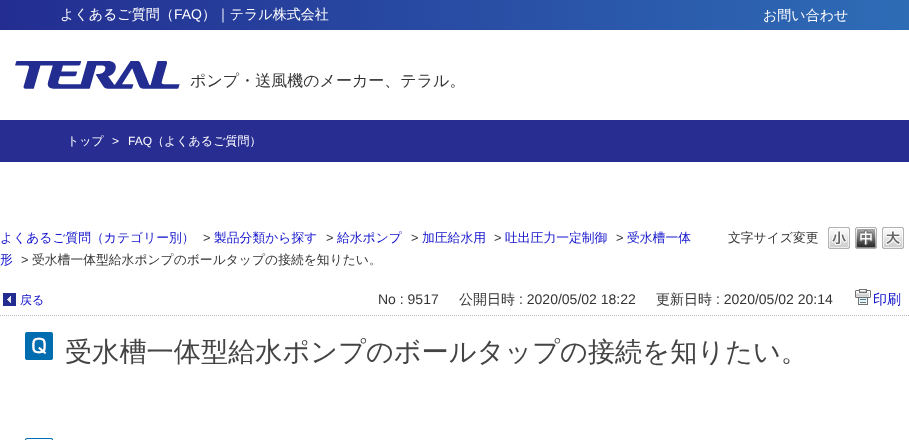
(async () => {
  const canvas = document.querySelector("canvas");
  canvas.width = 909;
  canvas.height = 440;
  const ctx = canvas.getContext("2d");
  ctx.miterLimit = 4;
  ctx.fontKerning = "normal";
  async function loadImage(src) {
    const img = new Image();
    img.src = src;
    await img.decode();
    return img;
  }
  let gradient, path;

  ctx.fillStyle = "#ffffff";
  ctx.fillRect(0, 0, 909, 440);
  gradient = ctx.createLinearGradient(0, 15, 909, 15);
  gradient.addColorStop(0, "#232d91");
  gradient.addColorStop(1, "#2e6cb6");
  ctx.fillStyle = gradient;
  ctx.fillRect(0, 0, 909, 30);
  ctx.drawImage(await loadImage("img/1.png"), 15, 61, 165, 28);
  ctx.fillStyle = "#282d92";
  ctx.fillRect(0, 120, 909, 42);
  ctx.drawImage(await loadImage("img/2.png"), 828, 227, 22, 22);
  ctx.drawImage(await loadImage("img/3.png"), 855, 227, 22, 22);
  ctx.drawImage(await loadImage("img/4.png"), 882, 227, 22, 22);
  path = new Path2D("M0 315.5H909");
  ctx.strokeStyle = "#bbbbbb";
  ctx.setLineDash([1, 1]);
  ctx.stroke(path);
  ctx.drawImage(await loadImage("img/5.png"), 3, 293, 13, 13);
  ctx.drawImage(await loadImage("img/6.png"), 855, 289, 16, 16);
  ctx.drawImage(await loadImage("img/7.png"), 25, 332, 28, 28);
  ctx.drawImage(await loadImage("img/8.png"), 25, 438, 28, 2);
  ctx.font = "500 14px WenQuanYi Zen Hei";
  ctx.fillStyle = "#ffffff";
  ctx.fillText("よくあるご質問（", 60, 19);
  ctx.font = "14px Liberation Sans";
  ctx.fillText("FAQ", 174, 19);
  ctx.font = "500 14px WenQuanYi Zen Hei";
  ctx.fillText("）｜テラル株式会社", 202, 19);
  ctx.fillText("お問い合わせ", 763, 20);
  ctx.font = "500 16px WenQuanYi Zen Hei";
  ctx.fillStyle = "#333333";
  ctx.fillText("ポンプ・送風機のメーカー、テラル。", 190, 86);
  ctx.font = "500 12px WenQuanYi Zen Hei";
  ctx.fillStyle = "#ffffff";
  ctx.fillText("トップ", 67, 145);
  ctx.font = "12px Liberation Sans";
  ctx.fillText(">", 112, 145);
  ctx.fillText("FAQ", 128, 145);
  ctx.font = "500 12px WenQuanYi Zen Hei";
  ctx.fillText("（よくあるご質問）", 152, 145);
  ctx.font = "500 12.8px WenQuanYi Zen Hei";
  ctx.fillStyle = "#1111cc";
  ctx.fillText("よくあるご質問（カテゴリー別）", 0, 242);
  ctx.font = "12.8px Liberation Sans";
  ctx.fillStyle = "#333333";
  ctx.fillText(">", 203, 242);
  ctx.font = "500 12.8px WenQuanYi Zen Hei";
  ctx.fillStyle = "#1111cc";
  ctx.fillText("製品分類から探す", 214, 242);
  ctx.font = "12.8px Liberation Sans";
  ctx.fillStyle = "#333333";
  ctx.fillText(">", 326, 242);
  ctx.font = "500 12.8px WenQuanYi Zen Hei";
  ctx.fillStyle = "#1111cc";
  ctx.fillText("給水ポンプ", 337, 242);
  ctx.font = "12.8px Liberation Sans";
  ctx.fillStyle = "#333333";
  ctx.fillText(">", 411, 242);
  ctx.font = "500 12.8px WenQuanYi Zen Hei";
  ctx.fillStyle = "#1111cc";
  ctx.fillText("加圧給水用", 422, 242);
  ctx.font = "12.8px Liberation Sans";
  ctx.fillStyle = "#333333";
  ctx.fillText(">", 494, 242);
  ctx.font = "500 12.8px WenQuanYi Zen Hei";
  ctx.fillStyle = "#1111cc";
  ctx.fillText("吐出圧力一定制御", 505, 242);
  ctx.font = "12.8px Liberation Sans";
  ctx.fillStyle = "#333333";
  ctx.fillText(">", 616, 242);
  ctx.font = "500 12.8px WenQuanYi Zen Hei";
  ctx.fillStyle = "#1111cc";
  ctx.fillText("受水槽一体", 627, 242);
  ctx.fillText("形", 0, 264);
  ctx.font = "12.8px Liberation Sans";
  ctx.fillStyle = "#333333";
  ctx.fillText(">", 21, 264);
  ctx.font = "500 12.8px WenQuanYi Zen Hei";
  ctx.fillText("受水槽一体型給水ポンプのボールタップの接続を知りたい。", 32, 264);
  ctx.fillText("文字サイズ変更", 728, 242);
  ctx.font = "500 12px WenQuanYi Zen Hei";
  ctx.fillStyle = "#1111cc";
  ctx.fillText("戻る", 20, 304);
  ctx.font = "14px Liberation Sans";
  ctx.fillStyle = "#333333";
  ctx.fillText("No : 9517", 378, 304);
  ctx.font = "500 14px WenQuanYi Zen Hei";
  ctx.fillText("公開日時", 459, 304);
  ctx.font = "14px Liberation Sans";
  ctx.fillText(": 2020/05/02 18:22", 519, 304);
  ctx.font = "500 14px WenQuanYi Zen Hei";
  ctx.fillText("更新日時", 656, 304);
  ctx.font = "14px Liberation Sans";
  ctx.fillText(": 2020/05/02 20:14", 716, 304);
  ctx.font = "500 14px WenQuanYi Zen Hei";
  ctx.fillStyle = "#1111cc";
  ctx.fillText("印刷", 873, 304);
  ctx.font = "500 27.2px WenQuanYi Zen Hei";
  ctx.fillStyle = "#444444";
  ctx.fillText("受水槽一体型給水ポンプのボールタップの接続を知りたい。", 65, 361);
})();
